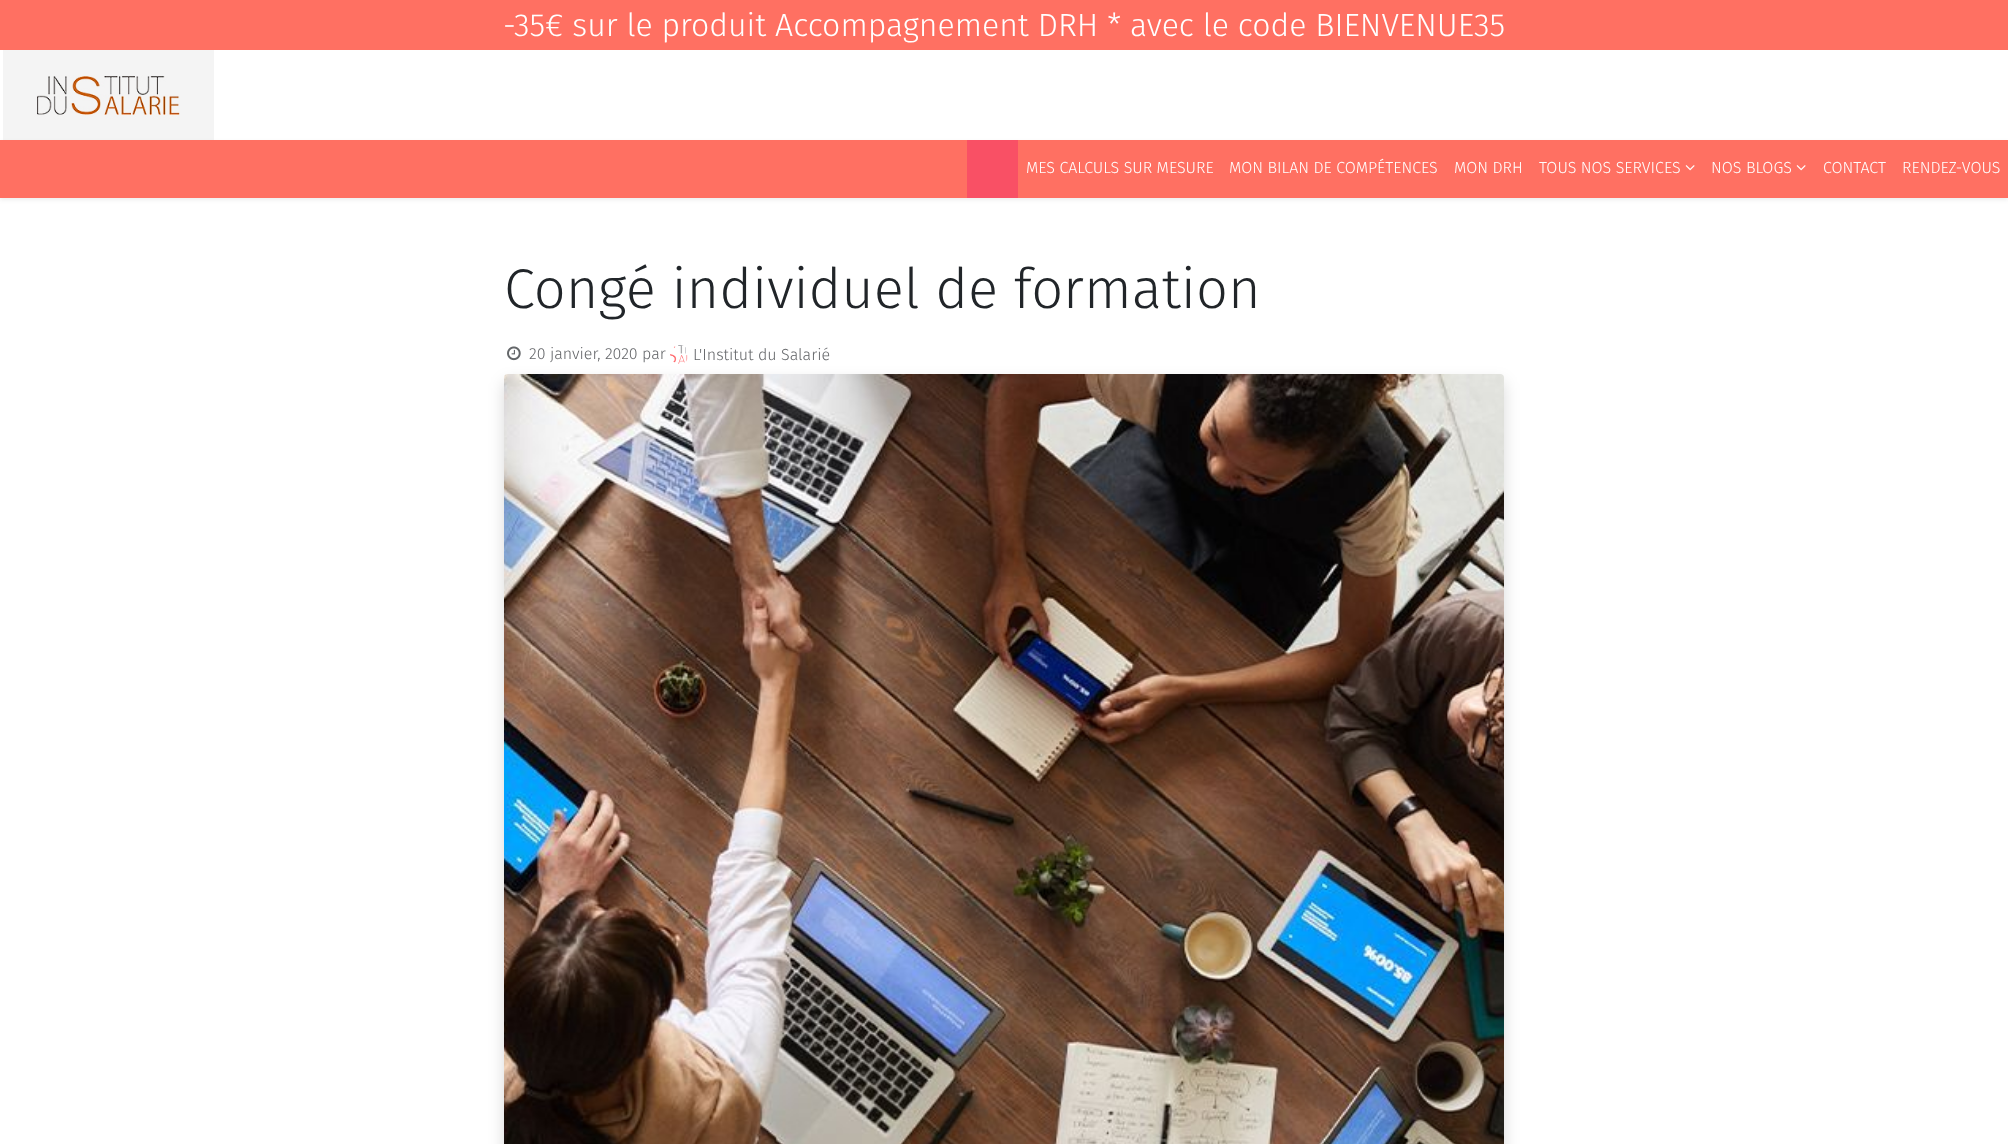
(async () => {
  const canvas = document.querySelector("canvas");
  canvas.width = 2008;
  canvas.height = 1144;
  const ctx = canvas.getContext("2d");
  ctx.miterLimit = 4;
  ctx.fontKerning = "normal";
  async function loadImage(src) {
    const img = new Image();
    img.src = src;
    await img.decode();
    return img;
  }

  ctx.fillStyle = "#ffffff";
  ctx.fillRect(0, 0, 2008, 1144);
  ctx.fillStyle = "#ff7062";
  ctx.fillRect(0, 0, 2008, 50);
  ctx.drawImage(await loadImage("img/1.png"), 3, 50, 211, 90);
  ctx.fillStyle = "rgba(0, 0, 0, 0.07)";
  ctx.filter = "blur(2px)";
  ctx.beginPath();
  ctx.rect(0, 142, 2008, 58);
  ctx.fill();
  ctx.filter = "none";
  ctx.fillStyle = "#ff7062";
  ctx.fillRect(0, 140, 2008, 58);
  ctx.fillStyle = "#f95065";
  ctx.fillRect(967, 140, 51, 58);
  ctx.drawImage(await loadImage("img/2.png"), 1685, 165, 10, 6);
  ctx.drawImage(await loadImage("img/2.png"), 1796, 165, 10, 6);
  ctx.drawImage(await loadImage("img/3.png"), 507, 346, 14, 15);
  ctx.drawImage(await loadImage("img/4.png"), 670, 345, 18, 19);
  ctx.fillStyle = "rgba(0, 0, 0, 0.15)";
  ctx.filter = "blur(8px)";
  ctx.beginPath();
  ctx.roundRect(504, 382, 1000, 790, 4);
  ctx.fill();
  ctx.filter = "none";
  ctx.drawImage(await loadImage("img/5.png"), 504, 374, 1000, 770);
  ctx.font = "300 32px Fira Sans";
  ctx.fillStyle = "#ffffff";
  ctx.fillText("-35€ sur le produit Accompagnement DRH * avec le code BIENVENUE35", 503, 36);
  ctx.font = "300 16px Fira Sans";
  for (const [text, x, y] of [
    ["MES CALCULS SUR MESURE", 1026, 173],
    ["MON BILAN DE COMPÉTENCES", 1229, 173],
    ["MON DRH", 1454, 173],
    ["TOUS NOS SERVICES", 1539, 173],
    ["NOS BLOGS", 1711, 173],
    ["CONTACT", 1823, 173],
    ["RENDEZ-VOUS", 1902, 173],
  ]) {
    ctx.fillText(text, x, y);
  }
  ctx.font = "300 56px Fira Sans";
  ctx.fillStyle = "#212529";
  ctx.fillText("Congé individuel de formation", 504, 308);
  ctx.font = "300 16px Fira Sans";
  ctx.fillStyle = "#646669";
  ctx.fillText("20 janvier, 2020 par", 529, 359);
  ctx.fillText("L'Institut du Salarié", 693, 360);
})();
